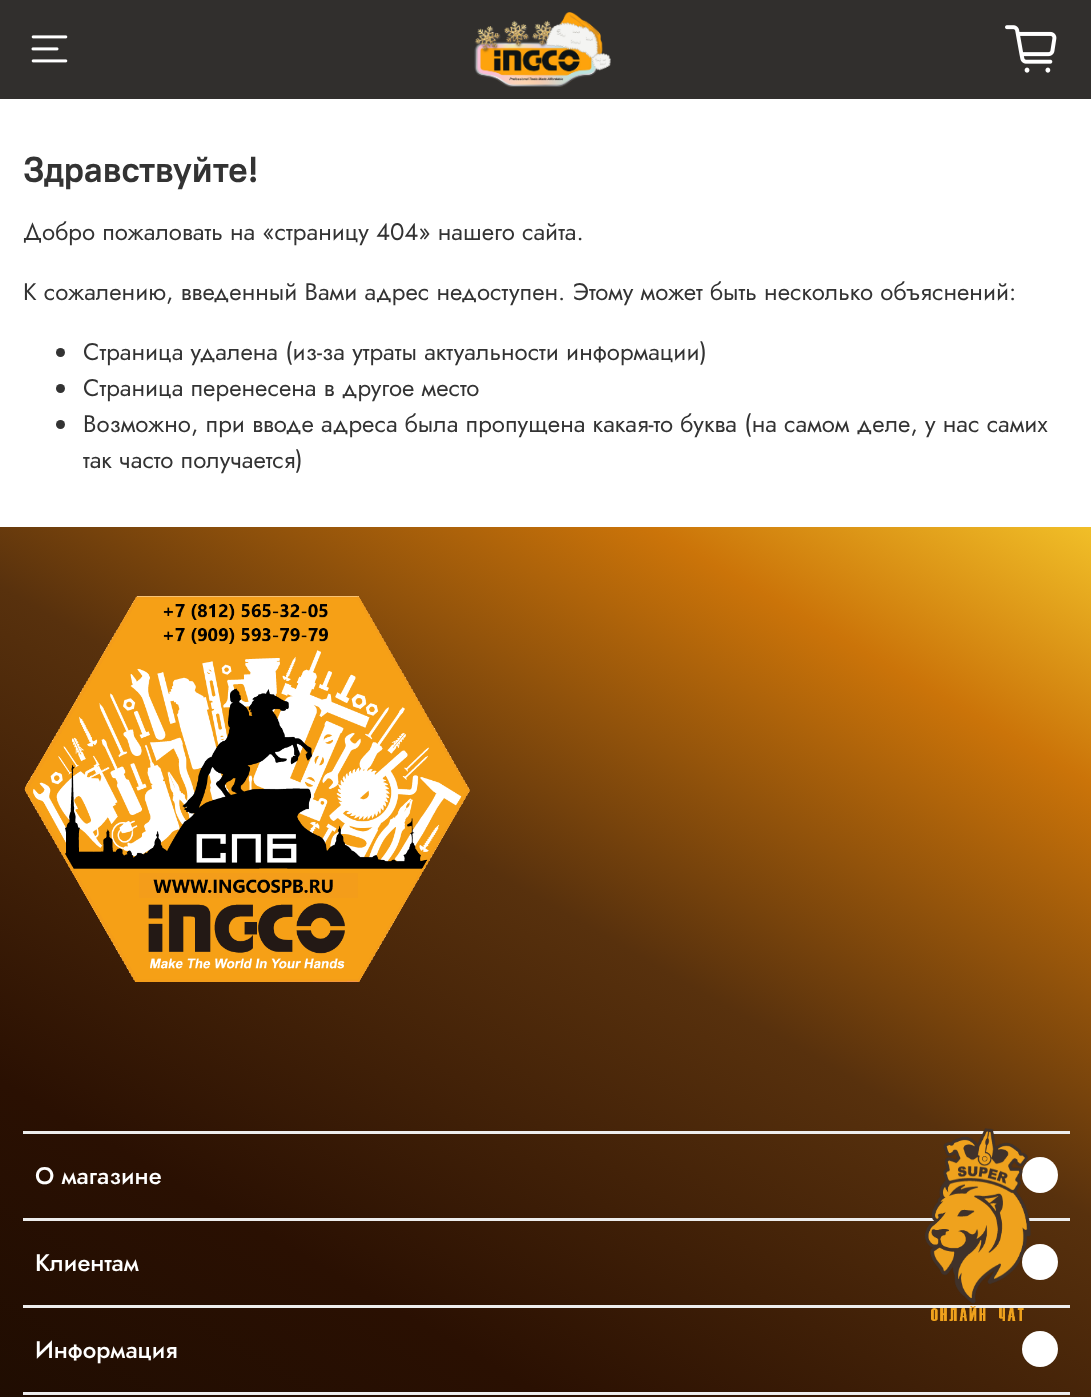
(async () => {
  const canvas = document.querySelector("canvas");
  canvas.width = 1091;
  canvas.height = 1397;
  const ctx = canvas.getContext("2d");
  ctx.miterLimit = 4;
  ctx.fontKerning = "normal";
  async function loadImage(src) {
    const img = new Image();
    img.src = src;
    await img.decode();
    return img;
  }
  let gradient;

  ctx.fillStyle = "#ffffff";
  ctx.fillRect(0, 0, 1091, 1397);
  ctx.fillStyle = "#312f2d";
  ctx.fillRect(0, 0, 1091, 99);
  ctx.drawImage(await loadImage("img/1.png"), 31, 35, 37, 28);
  ctx.drawImage(await loadImage("img/2.png"), 474, 12, 137, 75);
  ctx.drawImage(await loadImage("img/3.png"), 1005, 25, 52, 48);
  ctx.fillStyle = "#333333";
  ctx.beginPath();
  ctx.arc(60.5, 352.5, 4.5, 0, Math.PI * 2);
  ctx.fill();
  ctx.beginPath();
  ctx.arc(60.5, 388.5, 4.5, 0, Math.PI * 2);
  ctx.fill();
  ctx.beginPath();
  ctx.arc(60.5, 424.5, 4.5, 0, Math.PI * 2);
  ctx.fill();
  gradient = ctx.createLinearGradient(118, 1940, 974, 458);
  gradient.addColorStop(0, "#100801");
  gradient.addColorStop(0.4, "#2a1002");
  gradient.addColorStop(0.65, "#58310d");
  gradient.addColorStop(0.87, "#cb7409");
  gradient.addColorStop(1, "#f1bf28");
  ctx.fillStyle = gradient;
  ctx.fillRect(0, 527, 1091, 870);
  ctx.drawImage(await loadImage("img/4.png"), 24, 596, 446, 386);
  ctx.fillStyle = "#ededed";
  ctx.fillRect(23, 1131, 1047, 3);
  ctx.fillStyle = "#ffffff";
  ctx.beginPath();
  ctx.arc(1040, 1175, 18, 0, Math.PI * 2);
  ctx.fill();
  ctx.fillStyle = "#ededed";
  ctx.fillRect(23, 1218, 1047, 3);
  ctx.fillStyle = "#ffffff";
  ctx.beginPath();
  ctx.arc(1040, 1262, 18, 0, Math.PI * 2);
  ctx.fill();
  ctx.fillStyle = "#ededed";
  ctx.fillRect(23, 1305, 1047, 3);
  ctx.fillRect(23, 1392, 1047, 3);
  ctx.fillStyle = "#ffffff";
  ctx.beginPath();
  ctx.arc(1040, 1349, 18, 0, Math.PI * 2);
  ctx.fill();
  ctx.drawImage(await loadImage("img/5.png"), 925, 1128, 106, 193);
  ctx.font = "bold 36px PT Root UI";
  ctx.fillStyle = "#333333";
  ctx.fillText("Здравствуйте!", 23, 182);
  ctx.font = "24px Jost";
  for (const [text, x, y] of [
    ["Добро пожаловать на «страницу 404» нашего сайта.", 23, 240],
    ["К сожалению, введенный Вами адрес недоступен. Этому может быть несколько объяснений:", 23, 300],
    ["Страница удалена (из-за утраты актуальности информации)", 83, 360],
    ["Страница перенесена в другое место", 83, 396],
    ["Возможно, при вводе адреса была пропущена какая-то буква (на самом деле, у нас самих", 83, 432],
    ["так часто получается)", 83, 468],
  ]) {
    ctx.fillText(text, x, y);
  }
  ctx.font = "500 24px Jost";
  ctx.fillStyle = "#ffffff";
  for (const [text, x, y] of [
    ["О магазине", 35, 1184],
    ["Клиентам", 35, 1271],
    ["Информация", 35, 1358],
  ]) {
    ctx.fillText(text, x, y);
  }
})();
